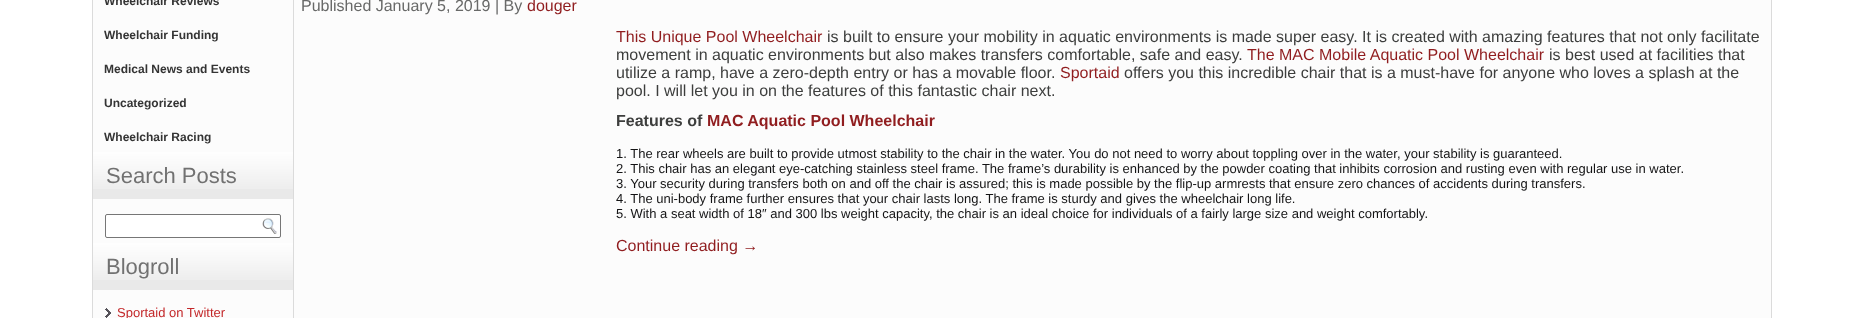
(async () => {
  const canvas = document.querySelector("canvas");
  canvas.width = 1864;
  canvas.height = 318;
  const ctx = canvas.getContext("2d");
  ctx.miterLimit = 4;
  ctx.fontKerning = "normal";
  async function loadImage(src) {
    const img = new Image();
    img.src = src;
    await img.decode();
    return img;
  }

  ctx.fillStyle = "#ffffff";
  ctx.fillRect(0, 0, 1864, 318);
  ctx.fillStyle = "#fcfcfc";
  ctx.beginPath();
  ctx.rect(92.5, -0.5, 1679, 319);
  ctx.fill();
  ctx.strokeStyle = "#dbdbdb";
  ctx.stroke();
  ctx.fillStyle = "#dbdbdb";
  ctx.fillRect(293, 0, 1, 318);
  ctx.fillStyle = "#e9e9e9";
  ctx.fillRect(93, 189, 200, 10);
  ctx.drawImage(await loadImage("img/1.png"), 93, 152, 200, 37);
  ctx.fillStyle = "#ffffff";
  ctx.beginPath();
  ctx.roundRect(105.5, 214.5, 175, 23, 1.5);
  ctx.fill();
  ctx.strokeStyle = "#767676";
  ctx.stroke();
  ctx.drawImage(await loadImage("img/2.png"), 262, 218, 15, 16);
  ctx.fillStyle = "#e9e9e9";
  ctx.fillRect(93, 280, 200, 10);
  ctx.drawImage(await loadImage("img/1.png"), 93, 243, 200, 37);
  ctx.drawImage(await loadImage("img/3.png"), 105, 308, 6, 10);
  ctx.font = "bold 12px Liberation Sans";
  ctx.fillStyle = "#343434";
  for (const [text, x, y] of [
    ["Wheelchair Reviews", 104, 5],
    ["Wheelchair Funding", 104, 39],
    ["Medical News and Events", 104, 73],
    ["Uncategorized", 104, 107],
    ["Wheelchair Racing", 104, 141],
  ]) {
    ctx.fillText(text, x, y);
  }
  ctx.font = "22px Liberation Sans";
  ctx.fillStyle = "#717171";
  ctx.fillText("Search Posts", 106, 183);
  ctx.fillText("Blogroll", 106, 274);
  ctx.font = "13px Liberation Sans";
  ctx.fillStyle = "#c3282a";
  ctx.fillText("Sportaid on Twitter", 117, 317);
  ctx.font = "16px Liberation Sans";
  ctx.fillStyle = "#686968";
  ctx.fillText("Published January 5, 2019 | By", 301, 11);
  ctx.fillStyle = "#901d1f";
  ctx.fillText("douger", 527, 11);
  ctx.fillText("This Unique Pool Wheelchair", 616, 42);
  ctx.fillStyle = "#3d3e3d";
  ctx.fillText("is built to ensure your mobility in aquatic environments is made super easy. It is created with amazing features that not only facilitate", 827, 42);
  ctx.fillText("movement in aquatic environments but also makes transfers comfortable, safe and easy.", 616, 60);
  ctx.fillStyle = "#901d1f";
  ctx.fillText("The MAC Mobile Aquatic Pool Wheelchair", 1247, 60);
  ctx.fillStyle = "#3d3e3d";
  ctx.fillText("is best used at facilities that", 1549, 60);
  ctx.fillText("utilize a ramp, have a zero-depth entry or has a movable floor.", 616, 78);
  ctx.fillStyle = "#901d1f";
  ctx.fillText("Sportaid", 1060, 78);
  ctx.fillStyle = "#3d3e3d";
  ctx.fillText("offers you this incredible chair that is a must-have for anyone who loves a splash at the", 1124, 78);
  ctx.fillText("pool. I will let you in on the features of this fantastic chair next.", 616, 96);
  ctx.font = "bold 16px Liberation Sans";
  ctx.fillText("Features of", 616, 126);
  ctx.fillStyle = "#901d1f";
  ctx.fillText("MAC Aquatic Pool Wheelchair", 707, 126);
  ctx.font = "13px Liberation Sans";
  ctx.fillStyle = "#141415";
  for (const [text, x, y] of [
    ["1. The rear wheels are built to provide utmost stability to the chair in the water. You do not need to worry about toppling over in the water, your stability is guaranteed.", 616, 158],
    ["2. This chair has an elegant eye-catching stainless steel frame. The frame’s durability is enhanced by the powder coating that inhibits corrosion and rusting even with regular use in water.", 616, 173],
    ["3. Your security during transfers both on and off the chair is assured; this is made possible by the flip-up armrests that ensure zero chances of accidents during transfers.", 616, 188],
    ["4. The uni-body frame further ensures that your chair lasts long. The frame is sturdy and gives the wheelchair long life.", 616, 203],
    ["5. With a seat width of 18″ and 300 lbs weight capacity, the chair is an ideal choice for individuals of a fairly large size and weight comfortably.", 616, 218],
  ]) {
    ctx.fillText(text, x, y);
  }
  ctx.font = "16px Liberation Sans";
  ctx.fillStyle = "#901d1f";
  ctx.fillText("Continue reading →", 616, 251);
})();
